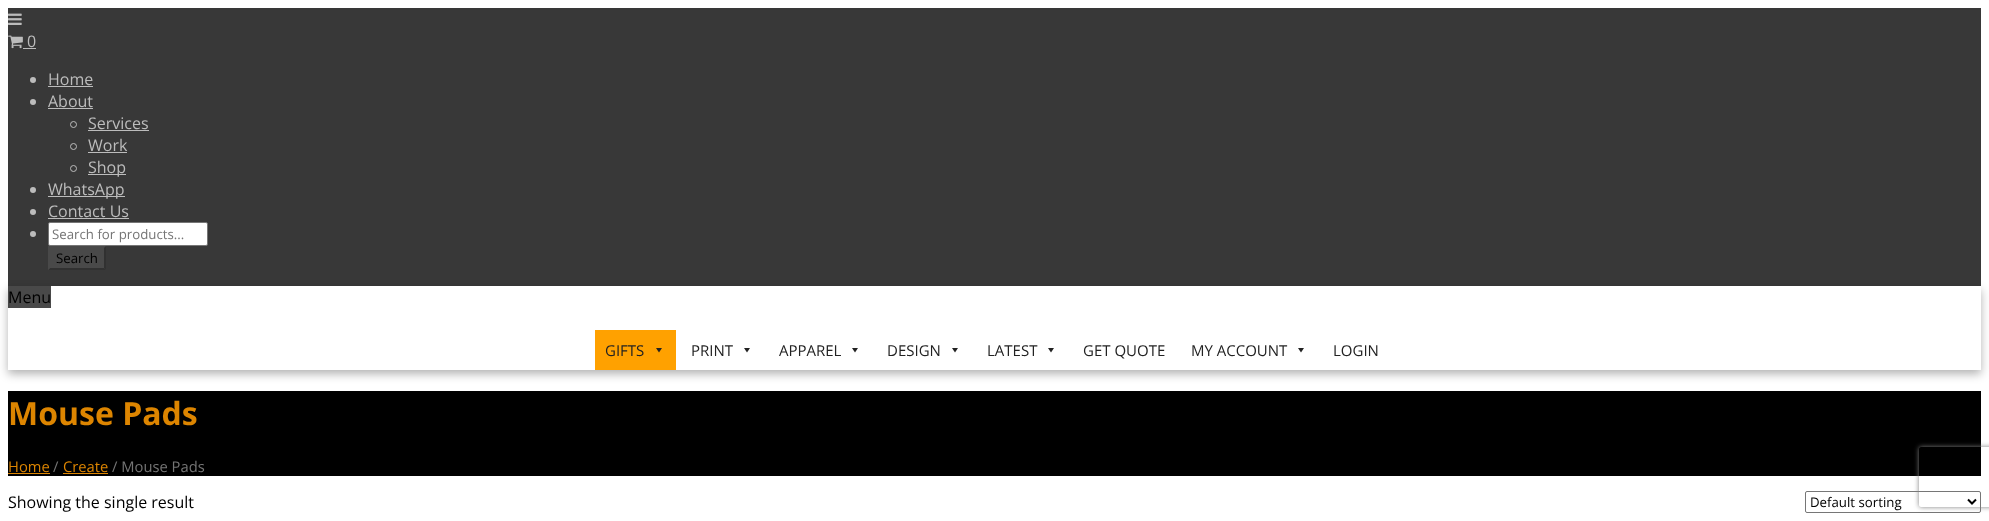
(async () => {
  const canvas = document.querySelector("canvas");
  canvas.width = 1989;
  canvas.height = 521;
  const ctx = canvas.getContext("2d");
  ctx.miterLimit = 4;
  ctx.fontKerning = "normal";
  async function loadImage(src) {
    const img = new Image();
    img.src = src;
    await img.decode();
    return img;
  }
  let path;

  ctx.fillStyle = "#ffffff";
  ctx.fillRect(0, 0, 1989, 521);
  ctx.fillStyle = "#383838";
  ctx.fillRect(8, 8, 1973, 278);
  ctx.drawImage(await loadImage("img/1.png"), 8, 13, 14, 12);
  ctx.drawImage(await loadImage("img/2.png"), 8, 35, 15, 14);
  ctx.fillStyle = "#bcbcbc";
  ctx.fillRect(23, 48, 13, 1);
  ctx.beginPath();
  ctx.arc(33, 80, 3, 0, Math.PI * 2);
  ctx.fill();
  ctx.fillRect(48, 86, 45, 1);
  ctx.beginPath();
  ctx.arc(33, 102, 3, 0, Math.PI * 2);
  ctx.fill();
  ctx.fillRect(48, 108, 45, 1);
  ctx.beginPath();
  ctx.arc(73.5, 124.5, 3, 0, Math.PI * 2);
  ctx.strokeStyle = "#bcbcbc";
  ctx.stroke();
  ctx.fillRect(88, 130, 61, 1);
  ctx.beginPath();
  ctx.arc(73.5, 146.5, 3, 0, Math.PI * 2);
  ctx.stroke();
  ctx.fillRect(88, 152, 39, 1);
  ctx.beginPath();
  ctx.arc(73.5, 168.5, 3, 0, Math.PI * 2);
  ctx.stroke();
  ctx.fillRect(88, 174, 38, 1);
  ctx.beginPath();
  ctx.arc(33, 190, 3, 0, Math.PI * 2);
  ctx.fill();
  ctx.fillRect(48, 196, 77, 1);
  ctx.beginPath();
  ctx.arc(33, 212, 3, 0, Math.PI * 2);
  ctx.fill();
  ctx.fillRect(48, 218, 81, 1);
  ctx.beginPath();
  ctx.arc(33, 234, 3, 0, Math.PI * 2);
  ctx.fill();
  ctx.fillStyle = "#ffffff";
  ctx.beginPath();
  ctx.roundRect(48.5, 222.5, 159, 23, 1.5);
  ctx.fill();
  ctx.strokeStyle = "#767676";
  ctx.stroke();
  ctx.fillStyle = "#494949";
  ctx.fillRect(48, 246, 58, 24);
  ctx.fillStyle = "#313131";
  path = new Path2D("M106 246V270L104 268V248Z");
  ctx.fill(path);
  path = new Path2D("M106 270H48L50 268H104Z");
  ctx.fill(path);
  ctx.fillStyle = "#494949";
  path = new Path2D("M48 270V246L50 248V268Z");
  ctx.fill(path);
  ctx.save();
  path = new Path2D("M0 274H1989V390H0ZM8 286H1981V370H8Z");
  ctx.clip(path, "evenodd");
  ctx.fillStyle = "rgba(0, 0, 0, 0.3)";
  ctx.filter = "blur(5px)";
  ctx.beginPath();
  ctx.rect(8, 290, 1973, 84);
  ctx.fill();
  ctx.filter = "none";
  ctx.restore();
  ctx.fillRect(8, 286, 43, 22);
  ctx.fillStyle = "#ffa100";
  ctx.fillRect(595, 330, 81, 40);
  ctx.fillStyle = "#222222";
  path = new Path2D("M662 348L659 352.5L656 348Z");
  ctx.fill(path);
  path = new Path2D("M750 348L747 352.5L744 348Z");
  ctx.fill(path);
  path = new Path2D("M858 348L855 352.5L852 348Z");
  ctx.fill(path);
  path = new Path2D("M958 348L955 352.5L952 348Z");
  ctx.fill(path);
  path = new Path2D("M1054 348L1051 352.5L1048 348Z");
  ctx.fill(path);
  path = new Path2D("M1304 348L1301 352.5L1298 348Z");
  ctx.fill(path);
  for (const [x, y, w, h, color] of [
    [8, 391, 1973, 85, "#000000"],
    [8, 473, 42, 1, "#dd8500"],
    [63, 473, 45, 1, "#dd8500"],
  ]) {
    ctx.fillStyle = color;
    ctx.fillRect(x, y, w, h);
  }
  ctx.beginPath();
  ctx.roundRect(1805.5, 491.5, 175, 21, 1.5);
  ctx.stroke();
  path = new Path2D("M1968 499.5L1972 503.5L1976 499.5");
  ctx.strokeStyle = "#000000";
  ctx.lineWidth = 2;
  ctx.stroke(path);
  ctx.save();
  path = new Path2D("M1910 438H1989V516H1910ZM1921 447H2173C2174 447 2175 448 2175 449V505C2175 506 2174 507 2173 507H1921C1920 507 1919 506 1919 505V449C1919 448 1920 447 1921 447Z");
  ctx.clip(path, "evenodd");
  ctx.fillStyle = "#808080";
  ctx.filter = "blur(2.5px)";
  ctx.beginPath();
  ctx.roundRect(1919, 447, 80, 60, 2);
  ctx.fill();
  ctx.filter = "none";
  ctx.restore();
  ctx.font = "16px Open Sans";
  ctx.fillStyle = "#bcbcbc";
  for (const [text, x, y] of [
    ["0", 27, 47],
    ["Home", 48, 85],
    ["About", 48, 107],
    ["Services", 88, 129],
    ["Work", 88, 151],
    ["Shop", 88, 173],
    ["WhatsApp", 48, 195],
    ["Contact Us", 48, 217],
  ]) {
    ctx.fillText(text, x, y);
  }
  ctx.font = "13.25px Open Sans";
  ctx.fillStyle = "#757575";
  ctx.fillText("Search for products...", 52, 239);
  ctx.fillStyle = "#000000";
  ctx.fillText("Search", 56, 263);
  ctx.font = "16px Open Sans";
  ctx.fillText("Menu", 8, 303);
  ctx.font = "15px Open Sans";
  ctx.fillStyle = "#222222";
  for (const [text, x, y] of [
    ["GIFTS", 605, 356],
    ["PRINT", 691, 356],
    ["APPAREL", 779, 356],
    ["DESIGN", 887, 356],
    ["LATEST", 987, 356],
    ["GET QUOTE", 1083, 356],
    ["MY ACCOUNT", 1191, 356],
    ["LOGIN", 1333, 356],
  ]) {
    ctx.fillText(text, x, y);
  }
  ctx.font = "bold 32px Open Sans";
  ctx.fillStyle = "#dd8500";
  ctx.fillText("Mouse Pads", 8, 425);
  ctx.font = "14.75px Open Sans";
  ctx.fillText("Home", 8, 472);
  ctx.fillStyle = "#757575";
  ctx.fillText("/", 53, 472);
  ctx.fillStyle = "#dd8500";
  ctx.fillText("Create", 63, 472);
  ctx.fillStyle = "#757575";
  ctx.fillText("/ Mouse Pads", 112, 472);
  ctx.font = "16px Open Sans";
  ctx.fillStyle = "#000000";
  ctx.fillText("Showing the single result", 8, 508);
  ctx.font = "13.25px Open Sans";
  ctx.fillText("Default sorting", 1810, 507);
})();
